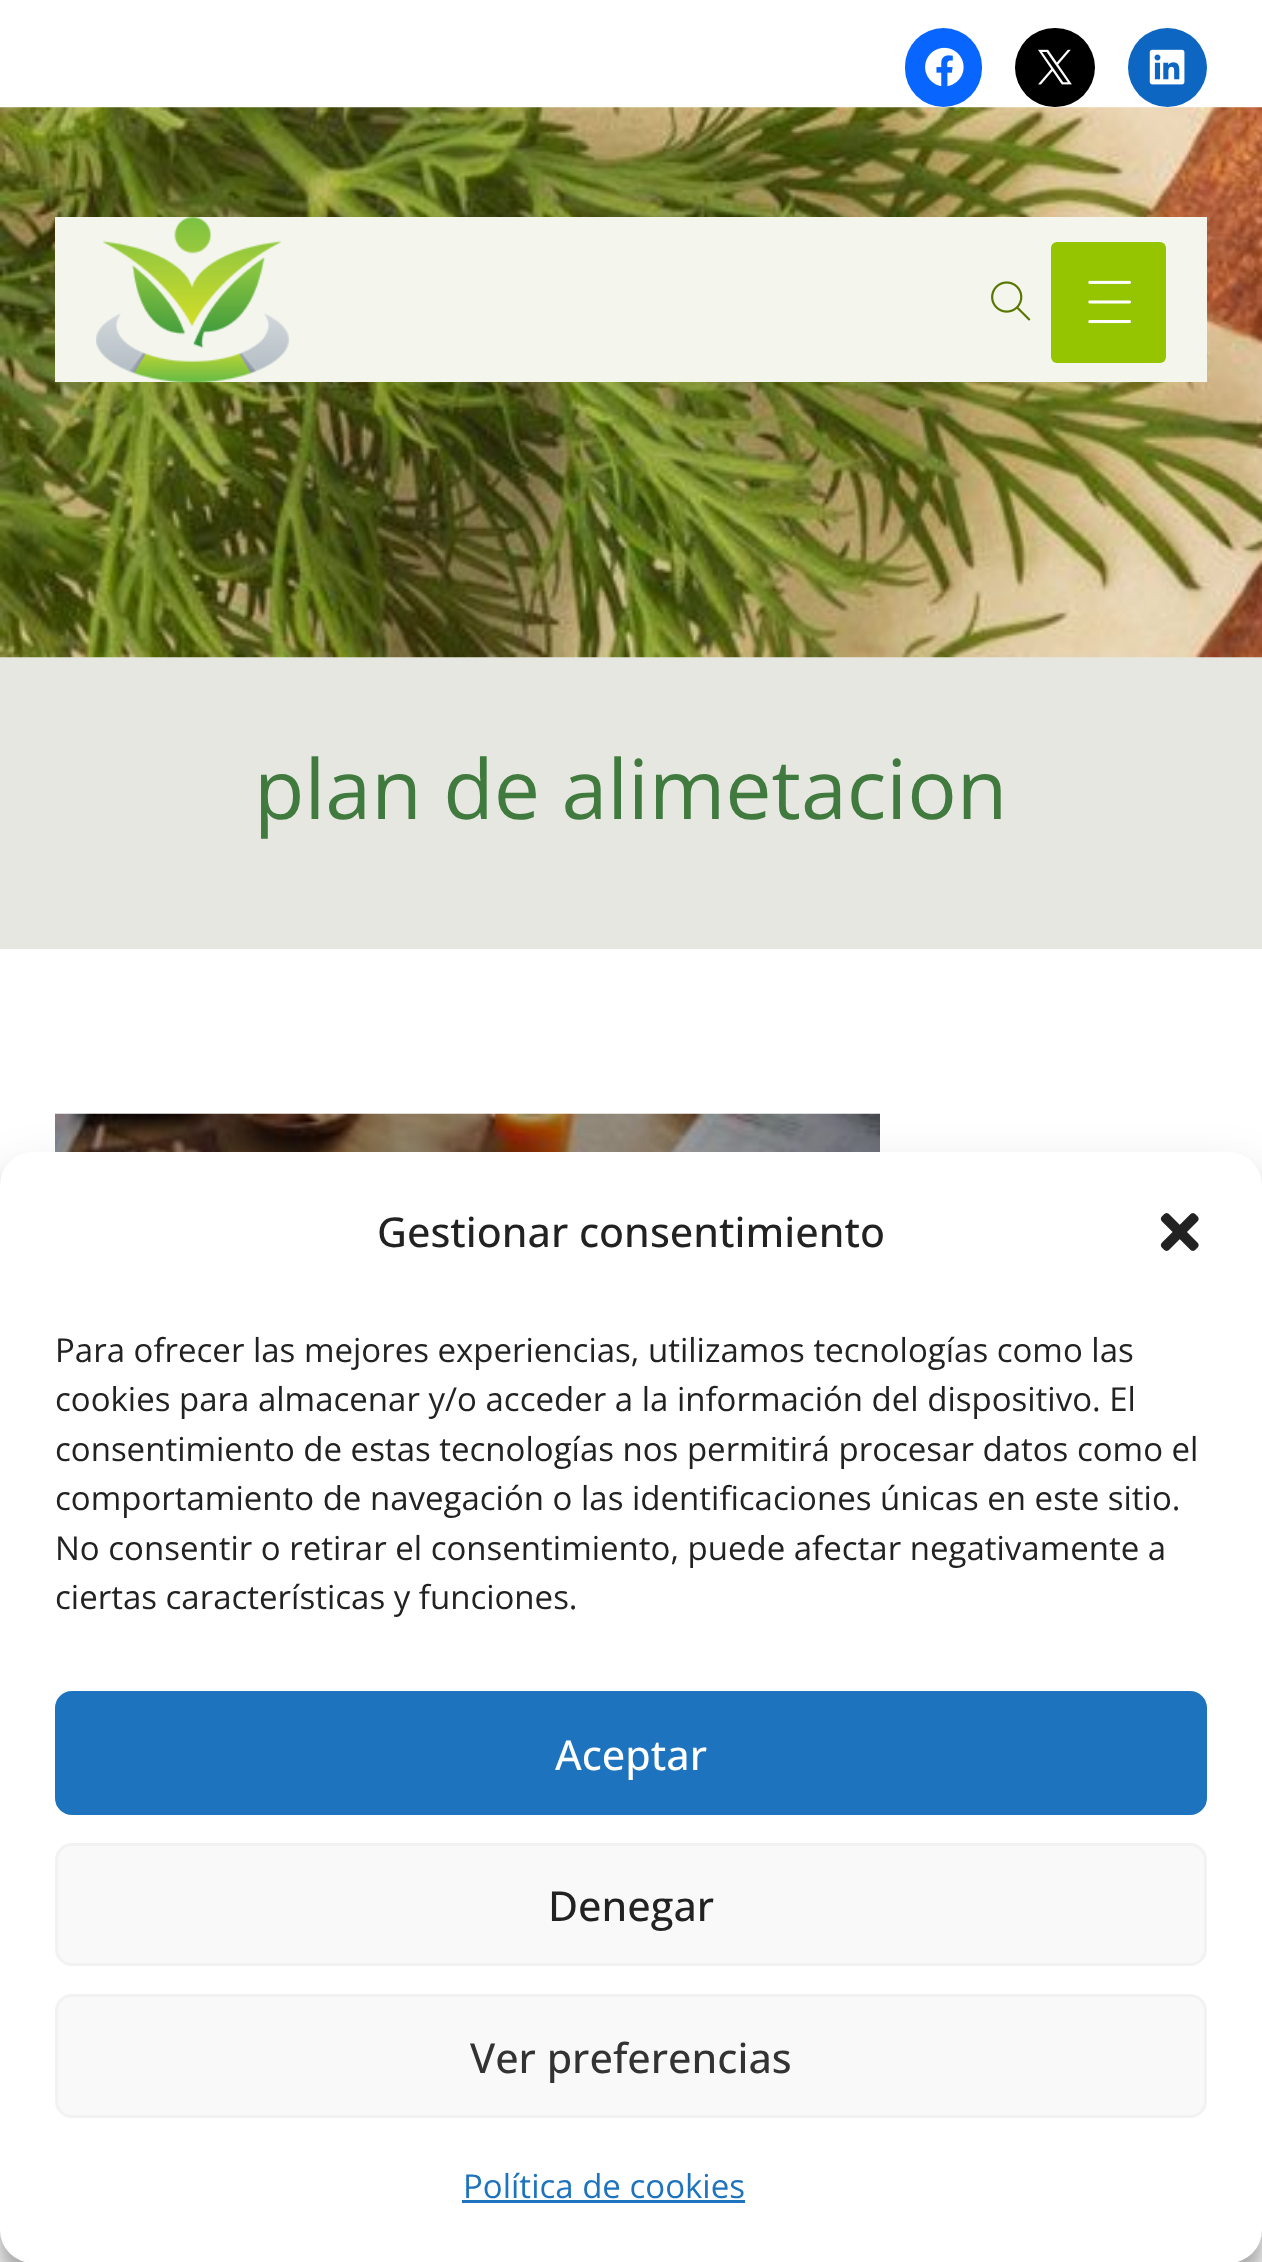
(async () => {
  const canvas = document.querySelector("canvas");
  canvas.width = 1262;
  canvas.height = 2262;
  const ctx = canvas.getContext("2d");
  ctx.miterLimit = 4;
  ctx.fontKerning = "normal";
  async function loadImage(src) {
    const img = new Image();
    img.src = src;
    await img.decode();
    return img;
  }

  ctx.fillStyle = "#ffffff";
  ctx.fillRect(0, 0, 1262, 2262);
  ctx.fillStyle = "#0866ff";
  ctx.beginPath();
  ctx.roundRect(905, 28, 77, 79, 38.5);
  ctx.fill();
  ctx.drawImage(await loadImage("img/1.png"), 925, 47, 39, 40);
  ctx.fillStyle = "#000000";
  ctx.beginPath();
  ctx.roundRect(1015, 28, 80, 79, 39.5);
  ctx.fill();
  ctx.drawImage(await loadImage("img/2.png"), 1038, 49, 34, 36);
  ctx.fillStyle = "#0d66c2";
  ctx.beginPath();
  ctx.arc(1167.5, 67.5, 39.5, 0, Math.PI * 2);
  ctx.fill();
  ctx.drawImage(await loadImage("img/3.png"), 1149, 49, 36, 36);
  ctx.fillStyle = "#e5e7e0";
  ctx.fillRect(0, 657, 1262, 292);
  ctx.drawImage(await loadImage("img/4.png"), 0, 107, 1262, 551);
  ctx.fillStyle = "#f4f6ee";
  ctx.fillRect(55, 217, 1152, 165);
  ctx.drawImage(await loadImage("img/5.png"), 96, 217, 193, 166);
  ctx.drawImage(await loadImage("img/6.png"), 991, 281, 40, 40);
  ctx.fillStyle = "#95c500";
  ctx.beginPath();
  ctx.roundRect(1051, 242, 115, 121, 6);
  ctx.fill();
  ctx.drawImage(await loadImage("img/7.png"), 1088, 280, 43, 44);
  ctx.drawImage(await loadImage("img/8.png"), 55, 1113, 825, 39);
  ctx.fillStyle = "rgba(0, 0, 0, 0.23)";
  ctx.filter = "blur(8px)";
  ctx.beginPath();
  ctx.roundRect(0, 1169, 1262, 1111, 33);
  ctx.fill();
  ctx.filter = "none";
  ctx.fillStyle = "rgba(0, 0, 0, 0.19)";
  ctx.filter = "blur(27.5px)";
  ctx.beginPath();
  ctx.roundRect(0, 1180, 1262, 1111, 33);
  ctx.fill();
  ctx.filter = "none";
  ctx.fillStyle = "#ffffff";
  ctx.beginPath();
  ctx.roundRect(0, 1152, 1262, 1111, 33);
  ctx.fill();
  ctx.drawImage(await loadImage("img/9.png"), 1160, 1213, 39, 38);
  ctx.fillStyle = "#1e73be";
  ctx.beginPath();
  ctx.roundRect(56.5, 1692.5, 1149, 121, 15.5);
  ctx.fill();
  ctx.strokeStyle = "#1e73be";
  ctx.lineWidth = 3;
  ctx.stroke();
  ctx.fillStyle = "#f9f9f9";
  ctx.beginPath();
  ctx.roundRect(56.5, 1844.5, 1149, 120, 15.5);
  ctx.fill();
  ctx.strokeStyle = "#f2f2f2";
  ctx.stroke();
  ctx.beginPath();
  ctx.roundRect(56.5, 1995.5, 1149, 121, 15.5);
  ctx.fill();
  ctx.stroke();
  ctx.fillStyle = "#1e73be";
  ctx.fillRect(462, 2200, 283, 3);
  ctx.font = "82.5px Open Sans";
  ctx.fillStyle = "#417a3e";
  ctx.fillText("plan de alimetacion", 254, 819);
  ctx.font = "500 41.25px Open Sans";
  ctx.fillStyle = "#222222";
  ctx.fillText("Gestionar consentimiento", 377, 1247);
  ctx.font = "33px Open Sans";
  for (const [text, x, y] of [
    ["Para ofrecer las mejores experiencias, utilizamos tecnologías como las", 55, 1362],
    ["cookies para almacenar y/o acceder a la información del dispositivo. El", 55, 1411],
    ["consentimiento de estas tecnologías nos permitirá procesar datos como el", 55, 1461],
    ["comportamiento de navegación o las identificaciones únicas en este sitio.", 55, 1510],
    ["No consentir o retirar el consentimiento, puede afectar negativamente a", 55, 1560],
    ["ciertas características y funciones.", 55, 1609],
  ]) {
    ctx.fillText(text, x, y);
  }
  ctx.font = "500 41.25px Open Sans";
  ctx.fillStyle = "#ffffff";
  ctx.fillText("Aceptar", 555, 1770);
  ctx.fillStyle = "#222222";
  ctx.fillText("Denegar", 548, 1921);
  ctx.fillStyle = "#333333";
  ctx.fillText("Ver preferencias", 470, 2073);
  ctx.font = "33px Open Sans";
  ctx.fillStyle = "#1e73be";
  ctx.fillText("Política de cookies", 463, 2198);
})();
